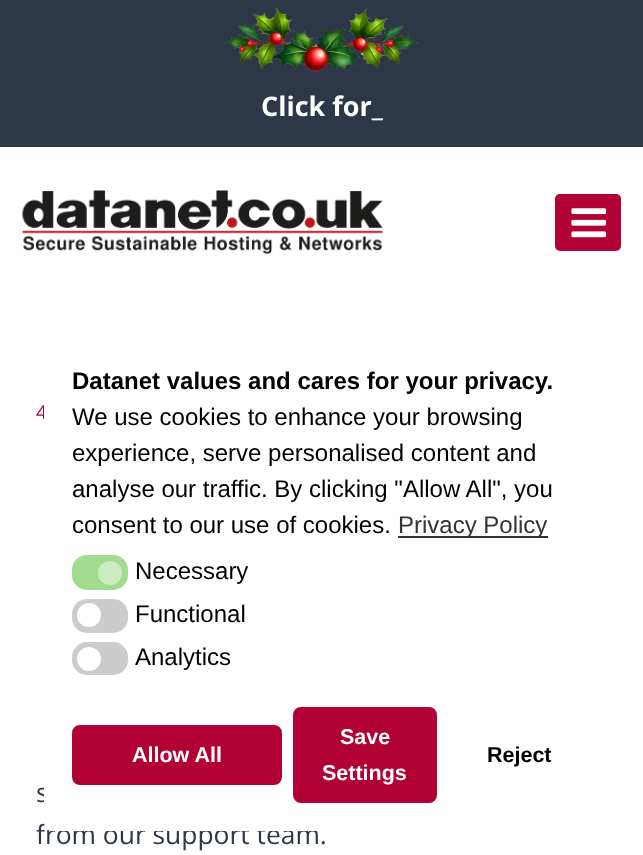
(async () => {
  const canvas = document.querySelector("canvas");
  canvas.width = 643;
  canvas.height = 855;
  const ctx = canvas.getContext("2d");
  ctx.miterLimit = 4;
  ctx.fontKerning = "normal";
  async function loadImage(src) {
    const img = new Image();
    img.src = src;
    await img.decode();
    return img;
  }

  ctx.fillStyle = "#ffffff";
  ctx.fillRect(0, 0, 643, 855);
  ctx.fillStyle = "#2d3748";
  ctx.fillRect(0, 0, 643, 147);
  ctx.drawImage(await loadImage("img/1.png"), 224, 7, 195, 65);
  ctx.drawImage(await loadImage("img/2.png"), 22, 190, 361, 65);
  ctx.fillStyle = "#b10135";
  ctx.beginPath();
  ctx.roundRect(555, 194, 66, 57, 5);
  ctx.fill();
  ctx.drawImage(await loadImage("img/3.png"), 571, 208, 36, 30);
  ctx.font = "bold 27px Open Sans";
  ctx.fillStyle = "#ffffff";
  ctx.fillText("Click for_", 261, 116);
  ctx.letterSpacing = "3px";
  ctx.font = "19px Open Sans";
  ctx.fillStyle = "#b10135";
  ctx.fillText("4", 36, 419);
  ctx.letterSpacing = "0px";
  ctx.font = "26.4px Open Sans";
  ctx.fillStyle = "#2d3748";
  ctx.fillText("s", 36, 802);
  ctx.fillText("from our support team.", 36, 844);
  ctx.fillStyle = "#ffffff";
  ctx.beginPath();
  ctx.roundRect(44, 335, 576, 496, 8);
  ctx.fill();
  ctx.fillStyle = "#cccccc";
  ctx.beginPath();
  ctx.roundRect(72, 642, 56, 33, 15);
  ctx.fill();
  ctx.fillStyle = "#ffffff";
  ctx.beginPath();
  ctx.arc(89, 659, 12, 0, Math.PI * 2);
  ctx.fill();
  ctx.fillStyle = "#cccccc";
  ctx.beginPath();
  ctx.roundRect(72, 599, 56, 34, 15);
  ctx.fill();
  ctx.fillStyle = "#ffffff";
  ctx.beginPath();
  ctx.arc(89, 615, 12, 0, Math.PI * 2);
  ctx.fill();
  ctx.fillStyle = "#a0db8e";
  ctx.beginPath();
  ctx.roundRect(72, 555, 56, 35, 15);
  ctx.fill();
  ctx.fillStyle = "#cbebc1";
  ctx.beginPath();
  ctx.arc(110, 573, 12, 0, Math.PI * 2);
  ctx.fill();
  ctx.fillStyle = "#333333";
  ctx.fillRect(398, 536, 150, 2);
  ctx.font = "24px Liberation Sans";
  ctx.fillText("Privacy Policy", 398, 533);
  ctx.font = "bold 21.5px Liberation Sans";
  ctx.fillStyle = "#000000";
  ctx.fillText("Reject", 487, 762);
  ctx.fillStyle = "#b10135";
  ctx.beginPath();
  ctx.roundRect(294.5, 708.5, 141, 93, 6.5);
  ctx.fill();
  ctx.strokeStyle = "#b10135";
  ctx.lineWidth = 3;
  ctx.stroke();
  ctx.fillStyle = "#ffffff";
  ctx.fillText("Settings", 322, 780);
  ctx.fillText("Save", 340, 744);
  ctx.fillStyle = "#b10135";
  ctx.beginPath();
  ctx.roundRect(73.5, 726.5, 207, 57, 6.5);
  ctx.fill();
  ctx.stroke();
  ctx.fillStyle = "#ffffff";
  ctx.fillText("Allow All", 132, 762);
  ctx.font = "24px Liberation Sans";
  ctx.fillStyle = "#000000";
  for (const [text, x, y] of [
    ["Analytics", 135, 665],
    ["Functional", 135, 622],
    ["Necessary", 135, 579],
    ["consent to our use of cookies.", 72, 533],
    ["analyse our traffic. By clicking \"Allow All\", you", 72, 497],
    ["experience, serve personalised content and", 72, 461],
    ["We use cookies to enhance your browsing", 72, 425],
  ]) {
    ctx.fillText(text, x, y);
  }
  ctx.font = "bold 24px Liberation Sans";
  ctx.fillText("Datanet values and cares for your privacy.", 72, 389);
})();
